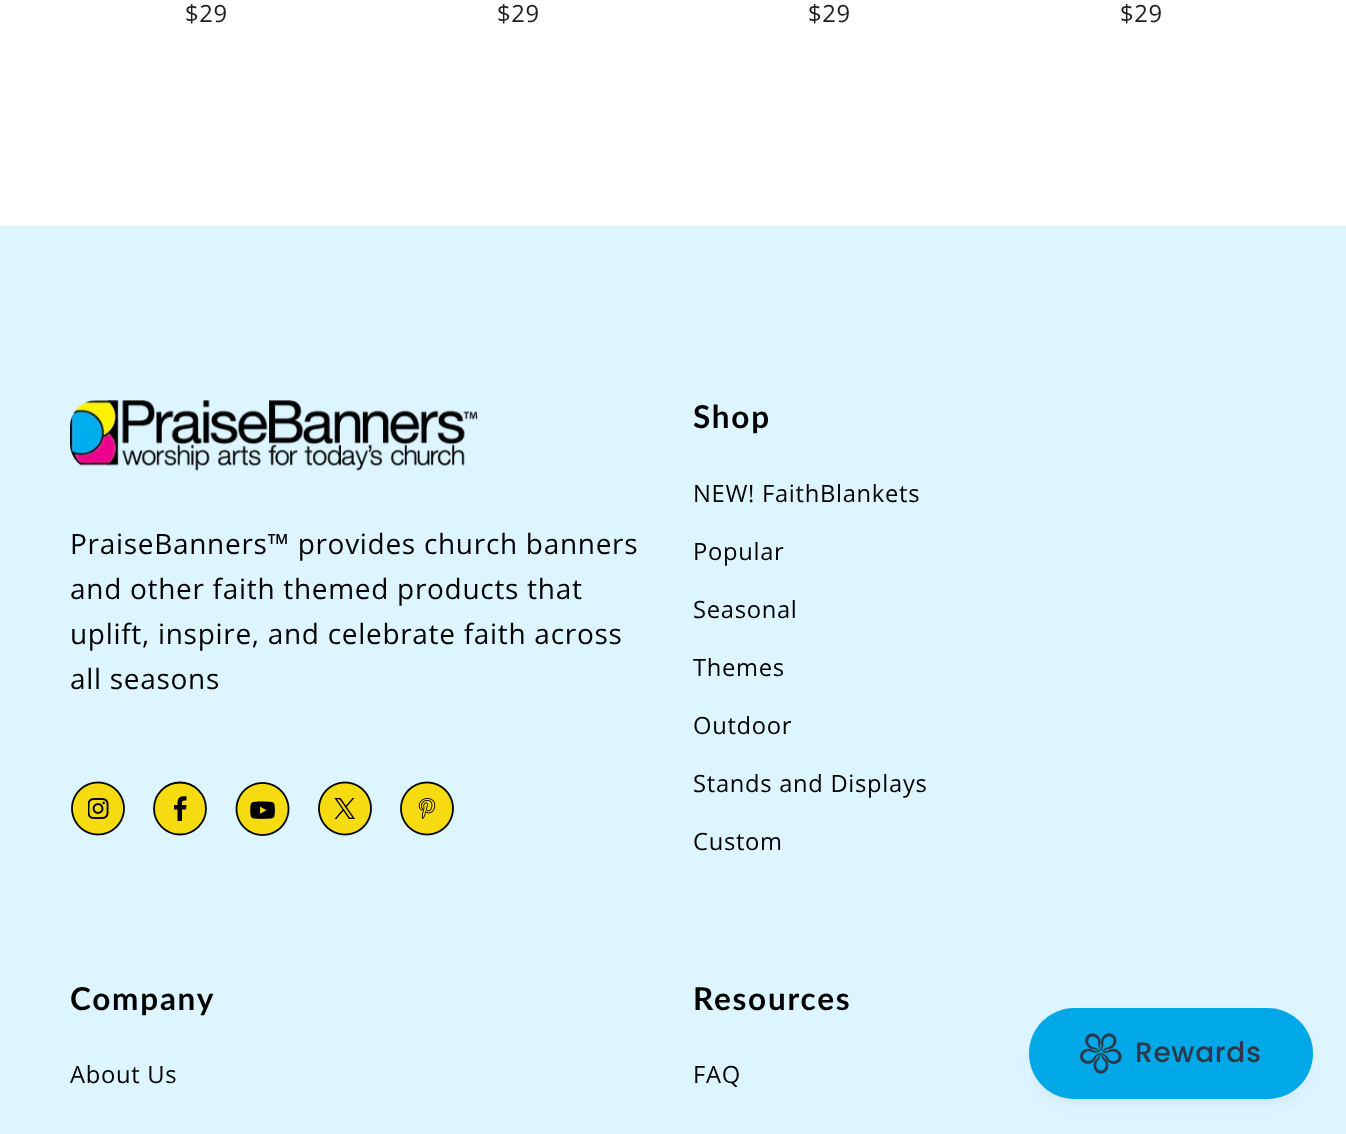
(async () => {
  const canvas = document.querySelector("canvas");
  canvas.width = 1346;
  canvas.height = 1134;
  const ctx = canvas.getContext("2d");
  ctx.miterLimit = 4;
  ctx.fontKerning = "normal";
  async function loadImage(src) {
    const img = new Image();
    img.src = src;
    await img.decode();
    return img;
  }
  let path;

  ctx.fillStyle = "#ffffff";
  ctx.fillRect(0, 0, 1346, 1134);
  ctx.fillStyle = "#dcf5ff";
  ctx.fillRect(0, 226, 1346, 908);
  ctx.drawImage(await loadImage("img/1.png"), 70, 400, 408, 71);
  ctx.drawImage(await loadImage("img/2.png"), 71, 781, 54, 55);
  ctx.fillStyle = "#f5db0f";
  ctx.beginPath();
  ctx.arc(180, 808.5, 26, 0, Math.PI * 2);
  ctx.fill();
  ctx.strokeStyle = "#000000";
  ctx.lineWidth = 1.8;
  ctx.stroke();
  ctx.fillStyle = "#000000";
  path = new Path2D("M182 821V809.5H186L186.5 805H182C182 800.5 182 800.5 186.5 800.5V796.5C179 795.5 177.5 798 177.5 805H174V809.5H177.5V821Z");
  ctx.fill(path);
  ctx.drawImage(await loadImage("img/3.png"), 235, 782, 55, 54);
  ctx.drawImage(await loadImage("img/4.png"), 318, 781, 54, 55);
  ctx.drawImage(await loadImage("img/5.png"), 400, 781, 54, 55);
  ctx.fillStyle = "rgba(68, 68, 68, 0.08)";
  ctx.filter = "blur(7px)";
  ctx.beginPath();
  ctx.roundRect(1033, 1019, 276, 84, 42);
  ctx.fill();
  ctx.filter = "none";
  ctx.fillStyle = "#00a8e8";
  ctx.beginPath();
  ctx.roundRect(1029, 1008, 284, 91, 45.5);
  ctx.fill();
  ctx.drawImage(await loadImage("img/6.png"), 1080, 1033, 42, 41);
  ctx.letterSpacing = "0.7px";
  ctx.font = "23.75px Open Sans";
  ctx.fillStyle = "#1c1d1d";
  for (const [text, x, y] of [
    ["$29", 185, 22],
    ["$29", 497, 22],
    ["$29", 808, 22],
    ["$29", 1120, 22],
  ]) {
    ctx.fillText(text, x, y);
  }
  ctx.font = "28px Open Sans";
  ctx.fillStyle = "#000000";
  for (const [text, x, y] of [
    ["PraiseBanners™ provides church banners", 70, 554],
    ["and other faith themed products that", 70, 599],
    ["uplift, inspire, and celebrate faith across", 70, 644],
    ["all seasons", 70, 689],
  ]) {
    ctx.fillText(text, x, y);
  }
  ctx.letterSpacing = "1.75px";
  ctx.font = "bold 31.5px Lato";
  ctx.fillText("Shop", 693, 428);
  ctx.letterSpacing = "0.7px";
  ctx.font = "23.75px Open Sans";
  for (const [text, x, y] of [
    ["NEW! FaithBlankets", 693, 502],
    ["Popular", 693, 560],
    ["Seasonal", 693, 618],
    ["Themes", 693, 676],
    ["Outdoor", 693, 734],
    ["Stands and Displays", 693, 792],
    ["Custom", 693, 850],
  ]) {
    ctx.fillText(text, x, y);
  }
  ctx.letterSpacing = "1.75px";
  ctx.font = "bold 31.5px Lato";
  ctx.fillText("Company", 70, 1010);
  ctx.letterSpacing = "0.7px";
  ctx.font = "23.75px Open Sans";
  ctx.fillText("About Us", 70, 1083);
  ctx.letterSpacing = "1.75px";
  ctx.font = "bold 31.5px Lato";
  ctx.fillText("Resources", 693, 1010);
  ctx.letterSpacing = "0.7px";
  ctx.font = "23.75px Open Sans";
  ctx.fillText("FAQ", 693, 1083);
  ctx.font = "500 28px Poppins";
  ctx.fillStyle = "#2d3748";
  ctx.fillText("Rewards", 1135, 1062);
})();
